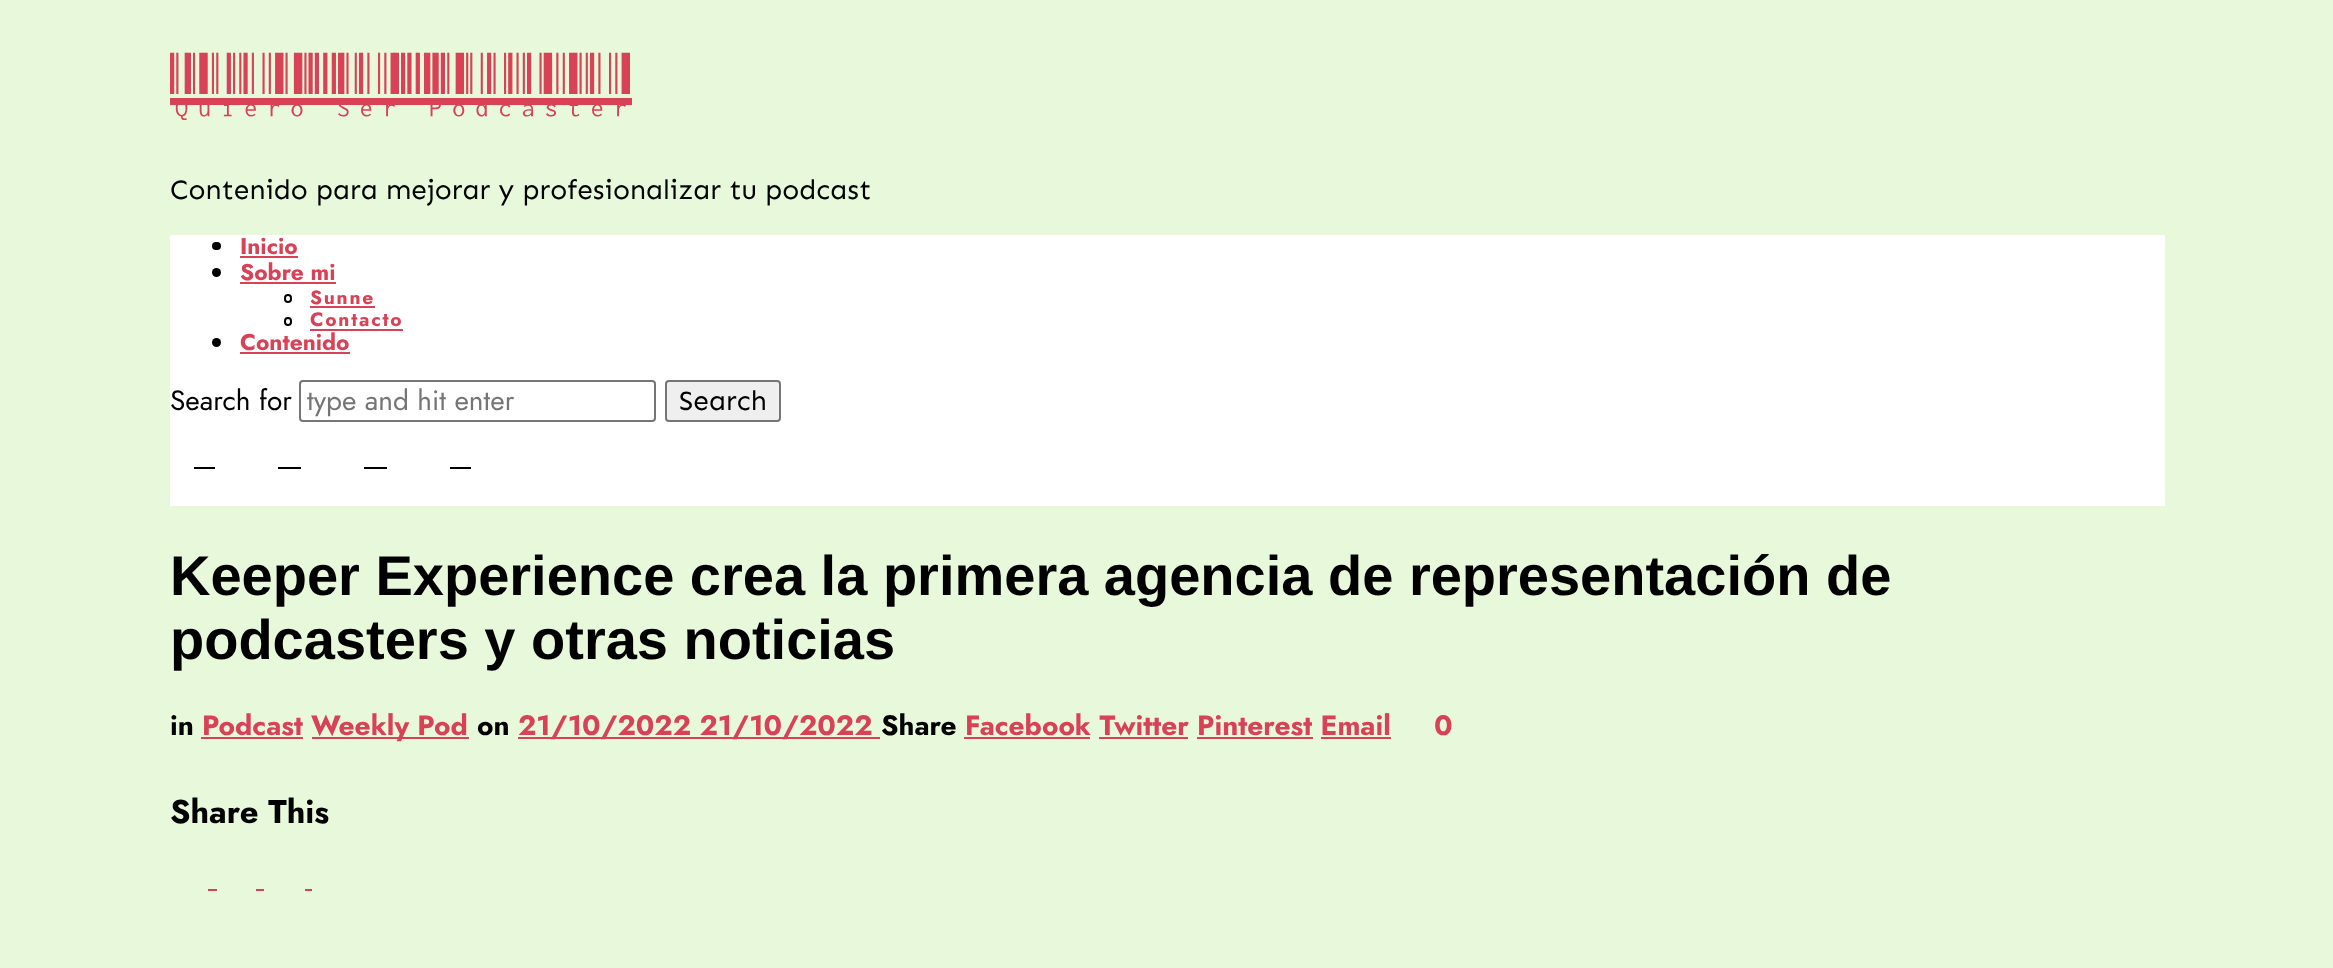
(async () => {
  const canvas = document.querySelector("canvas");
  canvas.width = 2333;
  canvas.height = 968;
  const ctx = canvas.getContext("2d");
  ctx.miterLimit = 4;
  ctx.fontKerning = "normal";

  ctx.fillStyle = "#e8f8da";
  ctx.fillRect(0, 0, 2333, 968);
  ctx.fillStyle = "#d84156";
  ctx.fillRect(170, 98, 462, 7);
  ctx.fillStyle = "#ffffff";
  ctx.fillRect(170, 235, 1995, 271);
  ctx.fillStyle = "#000000";
  ctx.beginPath();
  ctx.roundRect(212, 242, 9, 8, 4);
  ctx.fill();
  ctx.fillStyle = "#d84156";
  ctx.fillRect(240, 256, 58, 2);
  ctx.fillStyle = "#000000";
  ctx.beginPath();
  ctx.arc(216.5, 272.5, 4.5, 0, Math.PI * 2);
  ctx.fill();
  ctx.fillStyle = "#d84156";
  ctx.fillRect(240, 282, 96, 2);
  ctx.beginPath();
  ctx.roundRect(285, 295, 6, 7, 3);
  ctx.strokeStyle = "#000000";
  ctx.lineWidth = 2;
  ctx.stroke();
  ctx.fillRect(310, 306, 65, 2);
  ctx.beginPath();
  ctx.roundRect(285, 318, 6, 7, 3);
  ctx.stroke();
  ctx.fillRect(310, 329, 93, 2);
  ctx.fillStyle = "#000000";
  ctx.beginPath();
  ctx.arc(216.5, 342.5, 4.5, 0, Math.PI * 2);
  ctx.fill();
  ctx.fillStyle = "#d84156";
  ctx.fillRect(240, 352, 110, 2);
  ctx.beginPath();
  ctx.roundRect(300, 381, 355, 40, 3);
  ctx.strokeStyle = "#767676";
  ctx.stroke();
  ctx.fillStyle = "#efefef";
  ctx.beginPath();
  ctx.roundRect(666, 381, 114, 40, 3);
  ctx.fill();
  ctx.stroke();
  for (const [x, y, w, h, color] of [
    [194, 467, 21, 2, "#000000"],
    [278, 467, 23, 2, "#000000"],
    [364, 467, 23, 2, "#000000"],
    [450, 467, 21, 2, "#000000"],
    [201, 737, 102, 2, "#d84156"],
    [312, 737, 157, 2, "#d84156"],
    [518, 737, 362, 2, "#d84156"],
    [964, 737, 126, 2, "#d84156"],
    [1099, 737, 89, 2, "#d84156"],
    [1197, 737, 116, 2, "#d84156"],
    [1321, 737, 70, 2, "#d84156"],
    [208, 889, 9, 2, "#d84156"],
    [256, 889, 8, 2, "#d84156"],
    [305, 889, 7, 2, "#d84156"],
  ]) {
    ctx.fillStyle = color;
    ctx.fillRect(x, y, w, h);
  }
  ctx.font = "70px 'Libre Barcode 128 Text'";
  ctx.fillText("Quiero Ser Podcaster", 170, 94);
  ctx.font = "28px Sen";
  ctx.fillStyle = "#000000";
  ctx.fillText("Contenido para mejorar y profesionalizar tu podcast", 170, 199);
  ctx.font = "bold 22.75px Jost";
  ctx.fillStyle = "#d84156";
  ctx.fillText("Inicio", 240, 254);
  ctx.fillText("Sobre mi", 240, 280);
  ctx.letterSpacing = "1.75px";
  ctx.font = "bold 19.25px Jost";
  ctx.fillText("Sunne", 310, 304);
  ctx.fillText("Contacto", 310, 326);
  ctx.letterSpacing = "0px";
  ctx.font = "bold 22.75px Jost";
  ctx.fillText("Contenido", 240, 350);
  ctx.font = "28px Jost";
  ctx.fillStyle = "#000000";
  ctx.fillText("Search for", 170, 410);
  ctx.fillStyle = "#757575";
  ctx.fillText("type and hit enter", 307, 410);
  ctx.font = "28px Sen";
  ctx.fillStyle = "#000000";
  ctx.fillText("Search", 679, 410);
  ctx.font = "bold 56px Liberation Sans";
  ctx.fillText("Keeper Experience crea la primera agencia de representación de", 170, 595);
  ctx.fillText("podcasters y otras noticias", 170, 659);
  ctx.font = "bold 28px Jost";
  ctx.fillText("in", 170, 735);
  ctx.fillStyle = "#d84156";
  ctx.fillText("Podcast", 202, 735);
  ctx.fillText("Weekly Pod", 311, 735);
  ctx.fillStyle = "#000000";
  ctx.fillText("on", 477, 735);
  ctx.fillStyle = "#d84156";
  ctx.fillText("21/10/2022 21/10/2022", 518, 735);
  ctx.fillStyle = "#000000";
  ctx.fillText("Share", 881, 735);
  ctx.fillStyle = "#d84156";
  ctx.fillText("Facebook Twitter Pinterest Email", 965, 735);
  ctx.fillText("0", 1434, 735);
  ctx.font = "bold 32.75px Jost";
  ctx.fillStyle = "#000000";
  ctx.fillText("Share This", 170, 823);
})();
